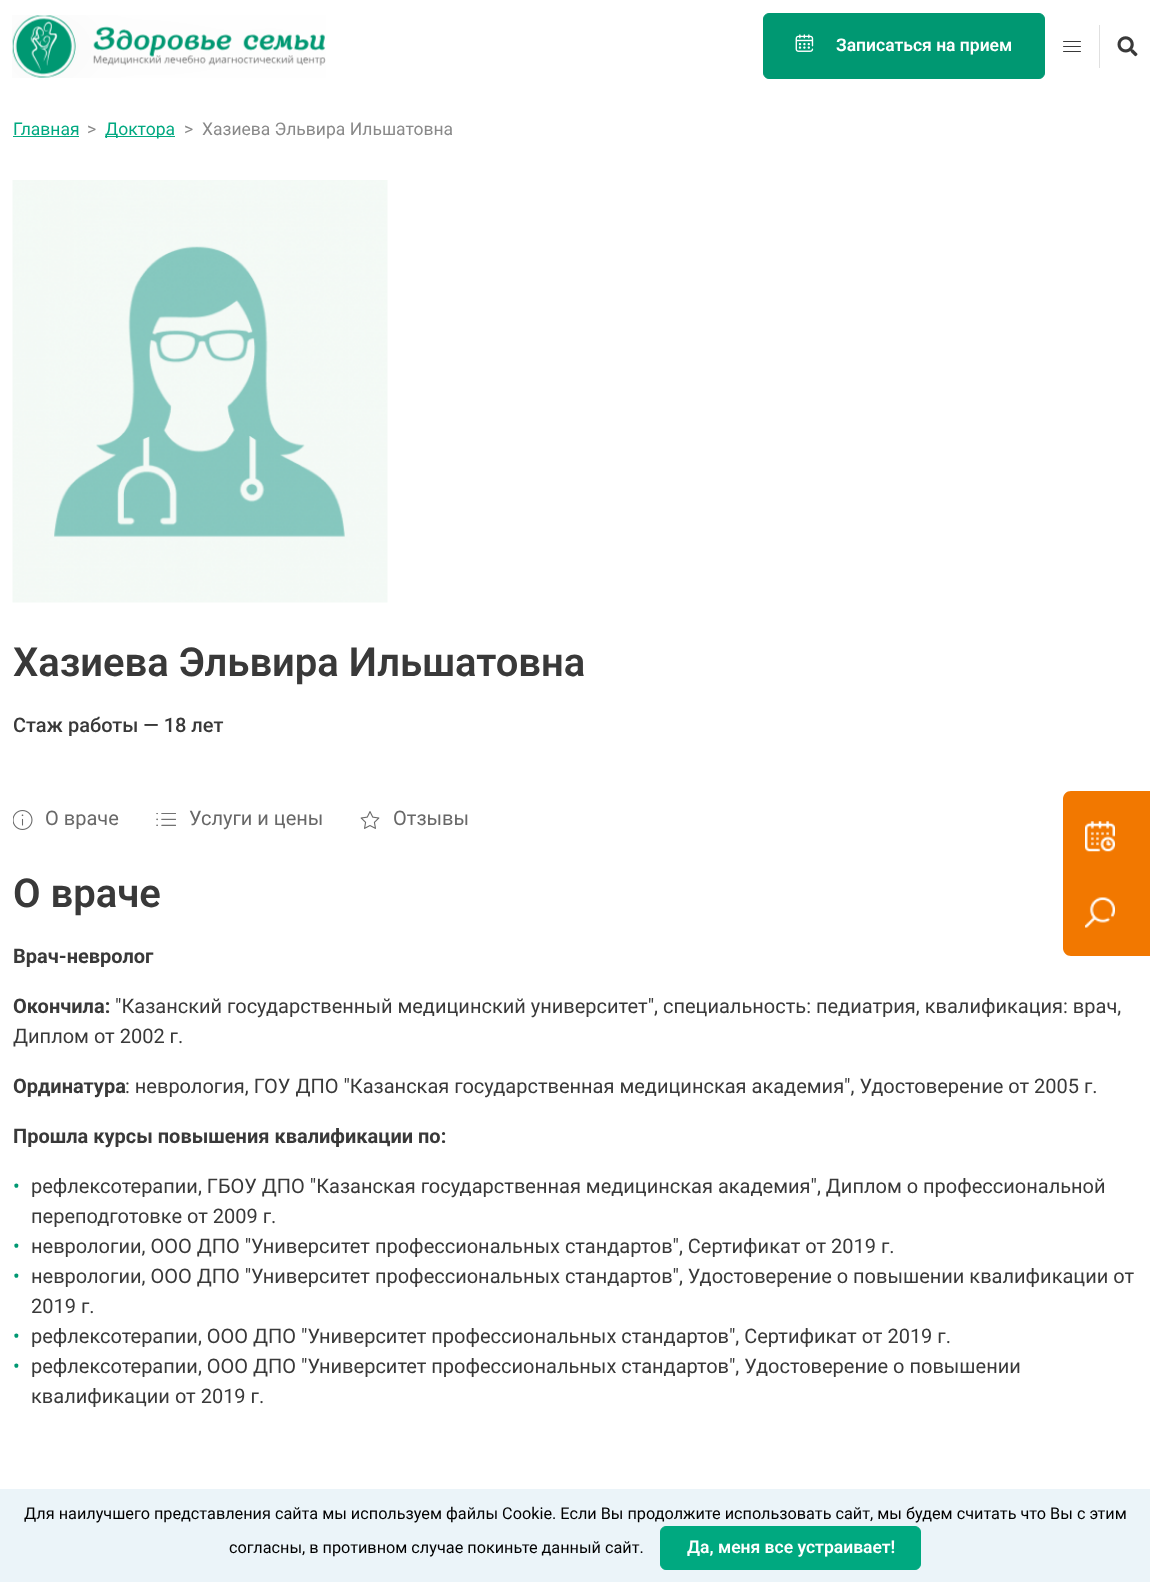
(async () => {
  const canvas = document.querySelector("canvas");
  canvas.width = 1150;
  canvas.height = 1582;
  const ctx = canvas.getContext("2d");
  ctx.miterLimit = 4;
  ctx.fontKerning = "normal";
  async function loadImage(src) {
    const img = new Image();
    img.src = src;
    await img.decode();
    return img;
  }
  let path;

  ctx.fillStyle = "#ffffff";
  ctx.fillRect(0, 0, 1150, 1582);
  ctx.drawImage(await loadImage("img/1.png"), 12, 15, 314, 63);
  ctx.fillStyle = "#009872";
  ctx.beginPath();
  ctx.roundRect(763.5, 13.5, 281, 65, 5.5);
  ctx.fill();
  ctx.strokeStyle = "#009872";
  ctx.stroke();
  ctx.drawImage(await loadImage("img/2.png"), 795, 34, 19, 18);
  ctx.fillStyle = "#393939";
  ctx.beginPath();
  ctx.roundRect(1063, 41, 18, 1, 0.5);
  ctx.fill();
  ctx.beginPath();
  ctx.roundRect(1063, 46, 18, 1, 0.5);
  ctx.fill();
  ctx.beginPath();
  ctx.roundRect(1063, 51, 18, 1, 0.5);
  ctx.fill();
  ctx.fillStyle = "#e0e0e0";
  ctx.fillRect(1099, 25, 1, 43);
  ctx.drawImage(await loadImage("img/3.png"), 1117, 36, 21, 21);
  ctx.fillStyle = "#00a980";
  ctx.fillRect(13, 136, 66, 1);
  ctx.fillRect(105, 136, 70, 1);
  ctx.drawImage(await loadImage("img/4.png"), 12, 180, 376, 423);
  ctx.drawImage(await loadImage("img/5.png"), 13, 810, 20, 20);
  ctx.drawImage(await loadImage("img/6.png"), 156, 813, 20, 13);
  ctx.drawImage(await loadImage("img/7.png"), 360, 811, 20, 18);
  ctx.fillStyle = "#f27800";
  path = new Path2D("M1071 791H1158V956H1071C1066.5 956 1063 952.5 1063 948V799C1063 794.5 1066.5 791 1071 791Z");
  ctx.fill(path);
  ctx.drawImage(await loadImage("img/8.png"), 1085, 821, 30, 31);
  ctx.drawImage(await loadImage("img/9.png"), 1085, 897, 30, 31);
  ctx.fillStyle = "#ebf4f9";
  ctx.fillRect(0, 1489, 1150, 93);
  ctx.fillStyle = "#00a980";
  ctx.beginPath();
  ctx.roundRect(660.5, 1526.5, 260, 43, 5.5);
  ctx.fill();
  ctx.strokeStyle = "#00a980";
  ctx.stroke();
  ctx.font = "600 17.5px Roboto";
  ctx.fillStyle = "#ffffff";
  ctx.fillText("Записаться на прием", 836, 51);
  ctx.font = "17.5px Roboto";
  ctx.fillStyle = "#00a980";
  ctx.fillText("Главная", 13, 135);
  ctx.fillStyle = "#898989";
  ctx.fillText(">", 87, 135);
  ctx.fillStyle = "#00a980";
  ctx.fillText("Доктора", 105, 135);
  ctx.fillStyle = "#898989";
  ctx.fillText(">", 184, 135);
  ctx.fillText("Хазиева Эльвира Ильшатовна", 202, 135);
  ctx.font = "600 40px Roboto";
  ctx.fillStyle = "#393939";
  ctx.fillText("Хазиева Эльвира Ильшатовна", 13, 676);
  ctx.font = "500 20px Roboto";
  ctx.fillText("Стаж работы — 18 лет", 13, 732);
  ctx.font = "20px Roboto";
  ctx.fillStyle = "#686868";
  for (const [text, x, y] of [
    ["О враче", 45, 825],
    ["Услуги и цены", 189, 825],
    ["Отзывы", 393, 825],
  ]) {
    ctx.fillText(text, x, y);
  }
  ctx.font = "600 40px Roboto";
  ctx.fillStyle = "#393939";
  ctx.fillText("О враче", 13, 907);
  ctx.font = "bold 20px Roboto";
  ctx.fillText("Врач-невролог", 13, 963);
  ctx.fillText("Окончила:", 13, 1013);
  ctx.font = "20px Roboto";
  ctx.fillText("\"Казанский государственный медицинский университет\", специальность: педиатрия, квалификация: врач,", 115, 1013);
  ctx.fillText("Диплом от 2002 г.", 13, 1043);
  ctx.font = "bold 20px Roboto";
  ctx.fillText("Ординатура", 13, 1093);
  ctx.font = "20px Roboto";
  ctx.fillText(": неврология, ГОУ ДПО \"Казанская государственная медицинская академия\", Удостоверение от 2005 г.", 125, 1093);
  ctx.font = "bold 20px Roboto";
  ctx.fillText("Прошла курсы повышения квалификации по:", 13, 1143);
  ctx.font = "20px Roboto";
  ctx.fillStyle = "#009872";
  ctx.fillText("•", 13, 1193);
  ctx.fillStyle = "#393939";
  ctx.fillText("рефлексотерапии, ГБОУ ДПО \"Казанская государственная медицинская академия\", Диплом о профессиональной", 31, 1193);
  ctx.fillText("переподготовке от 2009 г.", 31, 1223);
  ctx.fillStyle = "#009872";
  ctx.fillText("•", 13, 1253);
  ctx.fillStyle = "#393939";
  ctx.fillText("неврологии, ООО ДПО \"Университет профессиональных стандартов\", Сертификат от 2019 г.", 31, 1253);
  ctx.fillStyle = "#009872";
  ctx.fillText("•", 13, 1283);
  ctx.fillStyle = "#393939";
  ctx.fillText("неврологии, ООО ДПО \"Университет профессиональных стандартов\", Удостоверение о повышении квалификации от", 31, 1283);
  ctx.fillText("2019 г.", 31, 1313);
  ctx.fillStyle = "#009872";
  ctx.fillText("•", 13, 1343);
  ctx.fillStyle = "#393939";
  ctx.fillText("рефлексотерапии, ООО ДПО \"Университет профессиональных стандартов\", Сертификат от 2019 г.", 31, 1343);
  ctx.fillStyle = "#009872";
  ctx.fillText("•", 13, 1373);
  ctx.fillStyle = "#393939";
  ctx.fillText("рефлексотерапии, ООО ДПО \"Университет профессиональных стандартов\", Удостоверение о повышении", 31, 1373);
  ctx.fillText("квалификации от 2019 г.", 31, 1403);
  ctx.font = "16.25px Roboto";
  ctx.fillStyle = "#000000";
  ctx.fillText("Для наилучшего представления сайта мы используем файлы Cookie. Если Вы продолжите использовать сайт, мы будем считать что Вы с этим", 24, 1519);
  ctx.fillText("согласны, в противном случае покиньте данный сайт.", 229, 1553);
  ctx.font = "600 17.5px Roboto";
  ctx.fillStyle = "#ffffff";
  ctx.fillText("Да, меня все устраивает!", 687, 1553);
})();
